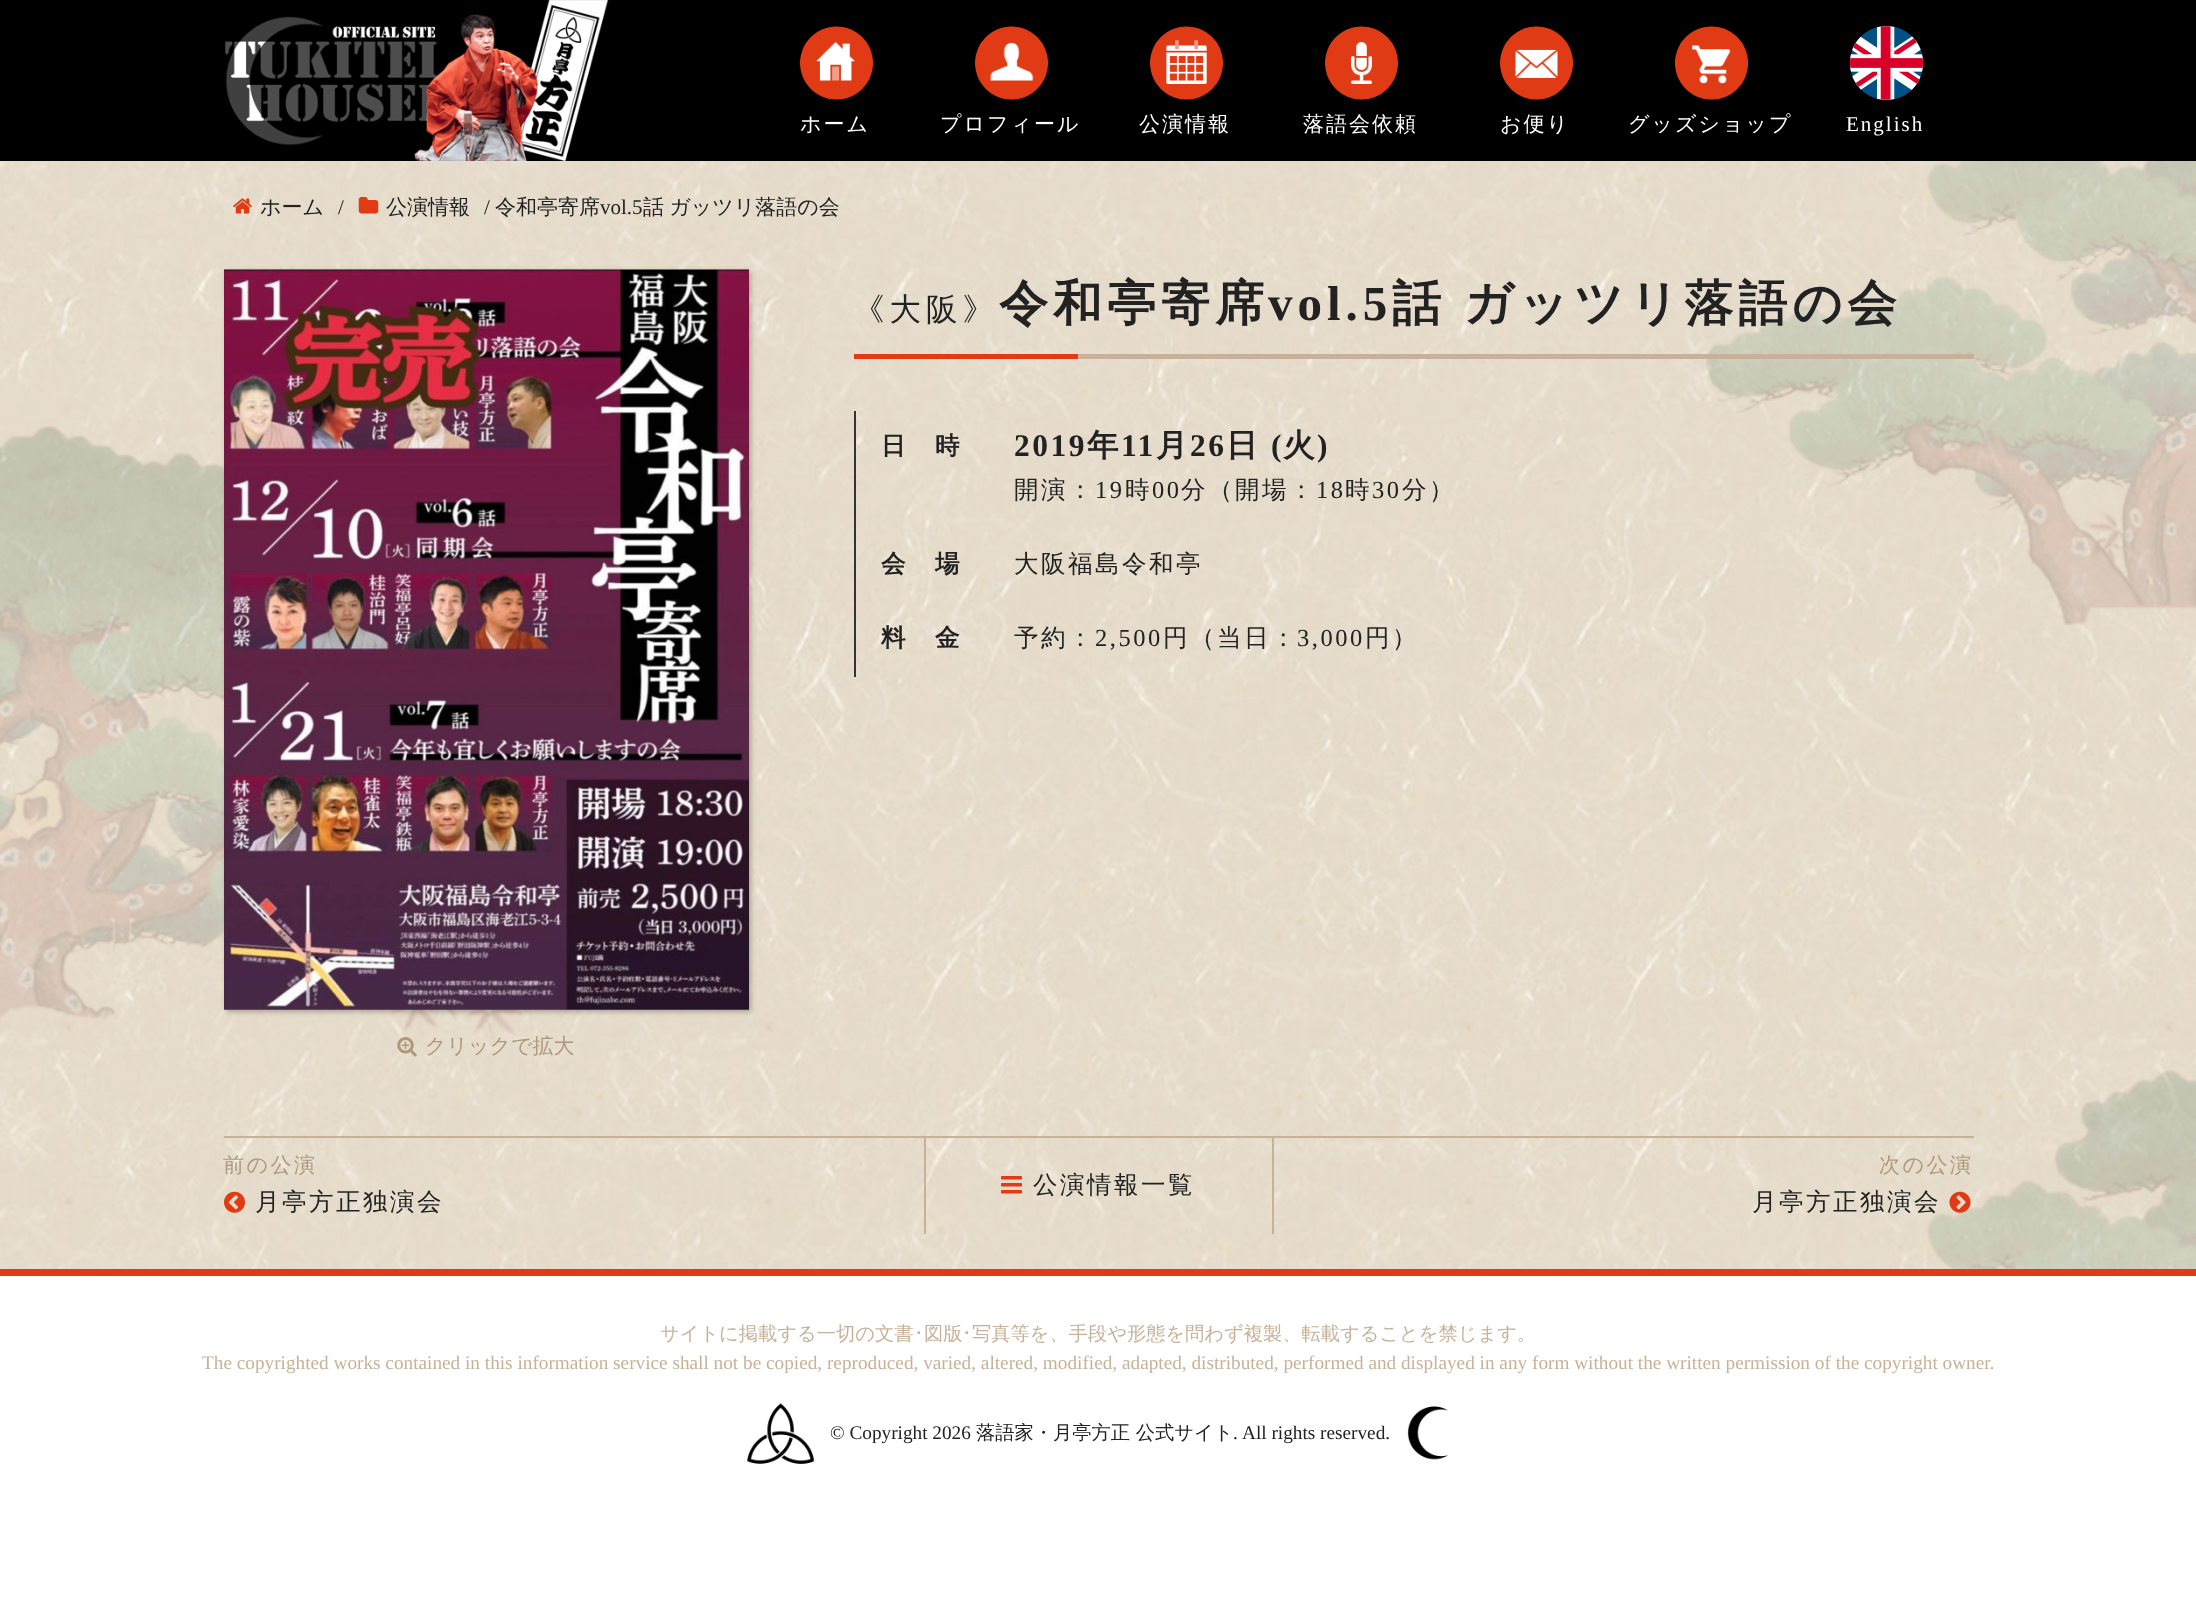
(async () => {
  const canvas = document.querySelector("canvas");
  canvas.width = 2196;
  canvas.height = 1603;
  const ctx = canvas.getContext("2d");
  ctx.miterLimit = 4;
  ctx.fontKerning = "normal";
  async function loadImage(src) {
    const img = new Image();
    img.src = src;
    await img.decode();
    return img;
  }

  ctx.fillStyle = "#ffffff";
  ctx.fillRect(0, 0, 2196, 1603);
  ctx.fillStyle = "#000000";
  ctx.fillRect(0, 0, 2196, 161);
  ctx.drawImage(await loadImage("img/1.png"), 225, 0, 384, 161);
  ctx.drawImage(await loadImage("img/2.png"), 799, 26, 75, 74);
  ctx.drawImage(await loadImage("img/3.png"), 974, 26, 75, 74);
  ctx.drawImage(await loadImage("img/4.png"), 1149, 26, 75, 74);
  ctx.drawImage(await loadImage("img/5.png"), 1324, 26, 75, 74);
  ctx.drawImage(await loadImage("img/6.png"), 1499, 26, 75, 74);
  ctx.drawImage(await loadImage("img/7.png"), 1674, 26, 75, 74);
  ctx.drawImage(await loadImage("img/8.png"), 1850, 26, 73, 74);
  ctx.drawImage(await loadImage("img/9.png"), 0, 161, 2196, 1108);
  ctx.drawImage(await loadImage("img/10.png"), 0, 426, 523, 613);
  ctx.drawImage(await loadImage("img/11.png"), 1705, 161, 491, 1108);
  ctx.drawImage(await loadImage("img/12.png"), 233, 198, 19, 16);
  ctx.drawImage(await loadImage("img/13.png"), 358, 197, 21, 17);
  for (const [x, y, w, h, color] of [
    [1078, 354, 896, 5, "#c7b299"],
    [854, 354, 224, 5, "#e03b15"],
    [854, 411, 2, 266, "#333333"],
  ]) {
    ctx.fillStyle = color;
    ctx.fillRect(x, y, w, h);
  }
  ctx.fillStyle = "rgba(0, 0, 0, 0.25)";
  ctx.filter = "blur(2.5px)";
  ctx.beginPath();
  ctx.rect(226, 271, 525, 741);
  ctx.fill();
  ctx.filter = "none";
  ctx.drawImage(await loadImage("img/14.png"), 224, 269, 525, 741);
  ctx.drawImage(await loadImage("img/15.png"), 397, 1037, 20, 20);
  ctx.fillStyle = "#c7b299";
  ctx.fillRect(224, 1136, 1750, 2);
  ctx.drawImage(await loadImage("img/16.png"), 224, 1191, 21, 22);
  ctx.fillRect(1272, 1138, 2, 96);
  ctx.fillRect(924, 1138, 2, 96);
  ctx.drawImage(await loadImage("img/17.png"), 1001, 1176, 21, 18);
  ctx.drawImage(await loadImage("img/18.png"), 1949, 1191, 22, 22);
  ctx.fillStyle = "#e03b15";
  ctx.fillRect(0, 1269, 2196, 7);
  ctx.drawImage(await loadImage("img/19.png"), 747, 1403, 67, 61);
  ctx.drawImage(await loadImage("img/20.png"), 1407, 1406, 41, 54);
  ctx.letterSpacing = "2px";
  ctx.font = "500 21px WenQuanYi Zen Hei";
  ctx.fillStyle = "#ffffff";
  for (const [text, x, y] of [
    ["ホーム", 800, 131],
    ["プロフィール", 940, 131],
    ["公演情報", 1139, 131],
    ["落語会依頼", 1303, 131],
    ["お便り", 1500, 131],
    ["グッズショップ", 1628, 131],
  ]) {
    ctx.fillText(text, x, y);
  }
  ctx.font = "21px Liberation Serif";
  ctx.fillText("English", 1846, 131);
  ctx.letterSpacing = "0px";
  ctx.font = "500 21px WenQuanYi Zen Hei";
  ctx.fillStyle = "#222222";
  ctx.fillText("ホーム", 260, 214);
  ctx.font = "21px Liberation Serif";
  ctx.fillText("/", 338, 214);
  ctx.font = "500 21px WenQuanYi Zen Hei";
  ctx.fillText("公演情報", 386, 214);
  ctx.font = "21px Liberation Serif";
  ctx.fillText("/", 484, 214);
  ctx.font = "500 21px WenQuanYi Zen Hei";
  ctx.fillText("令和亭寄席", 495, 214);
  ctx.font = "21px Liberation Serif";
  ctx.fillText("vol.5", 600, 214);
  ctx.wordSpacing = "-1px";
  ctx.font = "500 21px WenQuanYi Zen Hei";
  ctx.fillText("話 ガッツリ落語の会", 643, 214);
  ctx.letterSpacing = "5px";
  ctx.wordSpacing = "0px";
  ctx.font = "500 31.5px WenQuanYi Zen Hei";
  ctx.fillText("《大阪》", 853, 320);
  ctx.font = "bold 49px WenQuanYi Zen Hei";
  ctx.fillText("令和亭寄席", 999, 320);
  ctx.font = "bold 49px Liberation Serif";
  ctx.fillText("vol.5", 1268, 320);
  ctx.wordSpacing = "-2px";
  ctx.font = "bold 49px WenQuanYi Zen Hei";
  ctx.fillText("話 ガッツリ落語の会", 1392, 320);
  ctx.letterSpacing = "2.5px";
  ctx.wordSpacing = "0px";
  ctx.font = "bold 24.5px WenQuanYi Zen Hei";
  ctx.fillText("日　時", 881, 454);
  ctx.font = "bold 31.5px Liberation Serif";
  ctx.fillText("2019", 1014, 456);
  ctx.font = "bold 31.5px WenQuanYi Zen Hei";
  ctx.fillText("年", 1087, 456);
  ctx.font = "bold 31.5px Liberation Serif";
  ctx.fillText("11", 1121, 456);
  ctx.font = "bold 31.5px WenQuanYi Zen Hei";
  ctx.fillText("月", 1156, 456);
  ctx.font = "bold 31.5px Liberation Serif";
  ctx.fillText("26", 1190, 456);
  ctx.font = "bold 31.5px WenQuanYi Zen Hei";
  ctx.fillText("日", 1226, 456);
  ctx.font = "bold 31.5px Liberation Serif";
  ctx.fillText("(", 1271, 456);
  ctx.font = "bold 31.5px WenQuanYi Zen Hei";
  ctx.fillText("火", 1283, 456);
  ctx.font = "bold 31.5px Liberation Serif";
  ctx.fillText(")", 1317, 456);
  ctx.font = "500 24.5px WenQuanYi Zen Hei";
  ctx.fillText("開演：", 1014, 498);
  ctx.font = "24.5px Liberation Serif";
  ctx.fillText("19", 1095, 498);
  ctx.font = "500 24.5px WenQuanYi Zen Hei";
  ctx.fillText("時", 1125, 498);
  ctx.font = "24.5px Liberation Serif";
  ctx.fillText("00", 1152, 498);
  ctx.font = "500 24.5px WenQuanYi Zen Hei";
  ctx.fillText("分（開場：", 1181, 498);
  ctx.font = "24.5px Liberation Serif";
  ctx.fillText("18", 1316, 498);
  ctx.font = "500 24.5px WenQuanYi Zen Hei";
  ctx.fillText("時", 1345, 498);
  ctx.font = "24.5px Liberation Serif";
  ctx.fillText("30", 1372, 498);
  ctx.font = "500 24.5px WenQuanYi Zen Hei";
  ctx.fillText("分）", 1402, 498);
  ctx.font = "bold 24.5px WenQuanYi Zen Hei";
  ctx.fillText("会　場", 881, 572);
  ctx.font = "500 24.5px WenQuanYi Zen Hei";
  ctx.fillText("大阪福島令和亭", 1014, 572);
  ctx.font = "bold 24.5px WenQuanYi Zen Hei";
  ctx.fillText("料　金", 881, 646);
  ctx.font = "500 24.5px WenQuanYi Zen Hei";
  ctx.fillText("予約：", 1014, 646);
  ctx.font = "24.5px Liberation Serif";
  ctx.fillText("2,500", 1095, 646);
  ctx.font = "500 24.5px WenQuanYi Zen Hei";
  ctx.fillText("円（当日：", 1163, 646);
  ctx.font = "24.5px Liberation Serif";
  ctx.fillText("3,000", 1297, 646);
  ctx.font = "500 24.5px WenQuanYi Zen Hei";
  ctx.fillText("円）", 1365, 646);
  ctx.letterSpacing = "0px";
  ctx.font = "500 21px WenQuanYi Zen Hei";
  ctx.fillStyle = "#ae987d";
  ctx.fillText("クリックで拡大", 425, 1053);
  ctx.letterSpacing = "2.5px";
  ctx.fillText("前の公演", 223, 1172);
  ctx.font = "500 24.5px WenQuanYi Zen Hei";
  ctx.fillStyle = "#222222";
  ctx.fillText("月亭方正独演会", 255, 1210);
  ctx.fillText("公演情報一覧", 1033, 1193);
  ctx.font = "500 21px WenQuanYi Zen Hei";
  ctx.fillStyle = "#ae987d";
  ctx.fillText("次の公演", 1879, 1172);
  ctx.font = "500 24.5px WenQuanYi Zen Hei";
  ctx.fillStyle = "#222222";
  ctx.fillText("月亭方正独演会", 1752, 1210);
  ctx.letterSpacing = "0px";
  ctx.font = "500 19.25px WenQuanYi Zen Hei";
  ctx.fillStyle = "#c7b299";
  ctx.fillText("サイトに掲載する一切の文書", 660, 1340);
  ctx.font = "19.25px IPAPGothic";
  ctx.fillText("･", 914, 1340);
  ctx.font = "500 19.25px WenQuanYi Zen Hei";
  ctx.fillText("図版", 924, 1340);
  ctx.font = "19.25px IPAPGothic";
  ctx.fillText("･", 962, 1340);
  ctx.font = "500 19.25px WenQuanYi Zen Hei";
  ctx.fillText("写真等を、手段や形態を問わず複製、転載することを禁じます。", 972, 1340);
  ctx.font = "19.25px Liberation Serif";
  ctx.fillText("The copyrighted works contained in this information service shall not be copied, reproduced, varied, altered, modified, adapted, distributed, performed and displayed in any form without the written permission of the copyright owner.", 202, 1369);
  ctx.fillStyle = "#222222";
  ctx.fillText("© Copyright 2026", 830, 1439);
  ctx.font = "500 19.25px WenQuanYi Zen Hei";
  ctx.fillText("落語家・月亭方正 公式サイト", 976, 1439);
  ctx.font = "19.25px Liberation Serif";
  ctx.fillText(".", 1233, 1439);
  ctx.fillText("All rights reserved.", 1242, 1439);
})();
